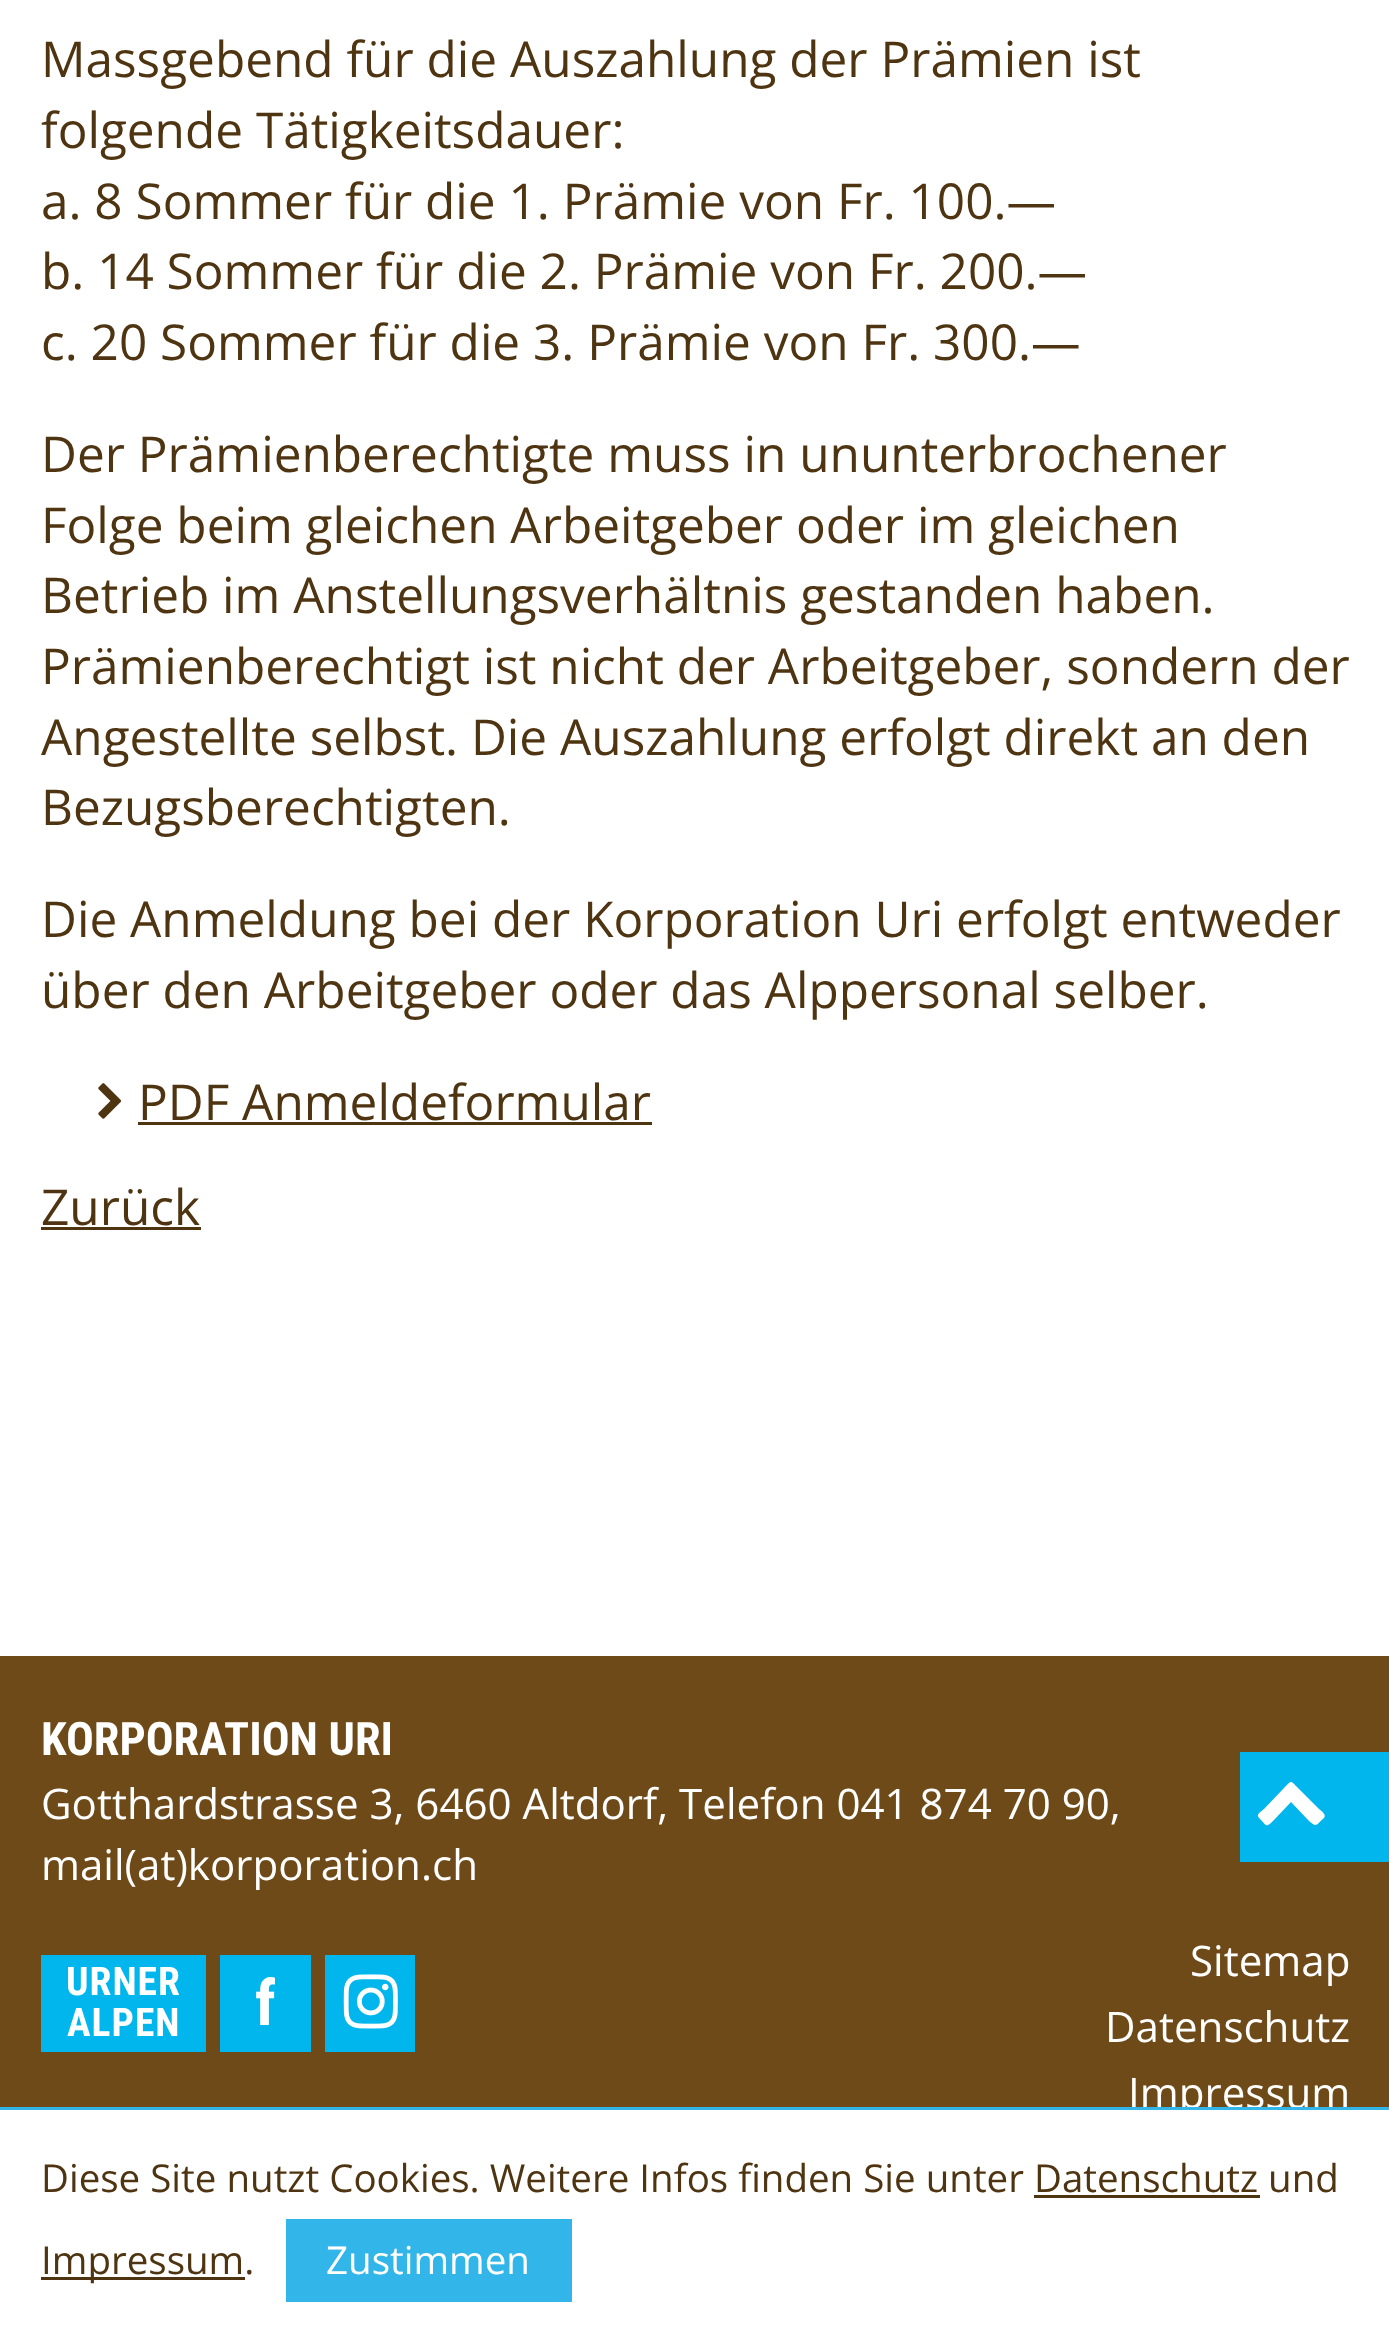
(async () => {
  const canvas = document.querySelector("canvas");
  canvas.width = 1389;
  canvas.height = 2343;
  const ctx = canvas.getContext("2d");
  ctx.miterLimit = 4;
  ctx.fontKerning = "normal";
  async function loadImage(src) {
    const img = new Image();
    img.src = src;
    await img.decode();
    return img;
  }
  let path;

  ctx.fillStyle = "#ffffff";
  ctx.fillRect(0, 0, 1389, 2343);
  ctx.drawImage(await loadImage("img/1.png"), 98, 1083, 24, 36);
  for (const [x, y, w, h, color] of [
    [138, 1122, 514, 3, "#4e3411"],
    [41, 1227, 160, 3, "#4e3411"],
    [0, 1656, 1389, 451, "#6e4a18"],
    [41, 1955, 165, 97, "#01b6ed"],
    [220, 1955, 91, 97, "#01b6ed"],
    [325, 1955, 90, 97, "#01b6ed"],
  ]) {
    ctx.fillStyle = color;
    ctx.fillRect(x, y, w, h);
  }
  ctx.drawImage(await loadImage("img/2.png"), 343, 1974, 55, 55);
  for (const [x, y, w, h, color] of [
    [1034, 2195, 226, 3, "#4e3411"],
    [41, 2277, 204, 3, "#4e3411"],
    [286, 2219, 286, 83, "#32b6e9"],
    [1240, 1752, 149, 110, "#01b6ed"],
  ]) {
    ctx.fillStyle = color;
    ctx.fillRect(x, y, w, h);
  }
  ctx.fillStyle = "#ffffff";
  path = new Path2D("M1324 1818C1316 1825 1317 1828 1309 1821L1291 1802L1273 1821C1266 1828 1267 1826 1260 1819C1255 1814 1260 1813 1264 1809L1284 1788C1292 1780 1290 1780 1298 1788L1319 1809C1320 1810 1327 1814 1324 1818Z");
  ctx.fill(path);
  ctx.font = "49.5px Open Sans";
  ctx.fillStyle = "#4e3411";
  for (const [text, x, y] of [
    ["Massgebend für die Auszahlung der Prämien ist", 41, 77],
    ["folgende Tätigkeitsdauer:", 41, 148],
    ["a. 8 Sommer für die 1. Prämie von Fr. 100.—", 41, 219],
    ["b. 14 Sommer für die 2. Prämie von Fr. 200.—", 41, 289],
    ["c. 20 Sommer für die 3. Prämie von Fr. 300.—", 41, 360],
    ["Der Prämienberechtigte muss in ununterbrochener", 41, 472],
    ["Folge beim gleichen Arbeitgeber oder im gleichen", 41, 543],
    ["Betrieb im Anstellungsverhältnis gestanden haben.", 41, 613],
    ["Prämienberechtigt ist nicht der Arbeitgeber, sondern der", 41, 684],
    ["Angestellte selbst. Die Auszahlung erfolgt direkt an den", 41, 755],
    ["Bezugsberechtigten.", 41, 825],
    ["Die Anmeldung bei der Korporation Uri erfolgt entweder", 41, 937],
    ["über den Arbeitgeber oder das Alppersonal selber.", 41, 1008],
    ["PDF Anmeldeformular", 138, 1120],
    ["Zurück", 41, 1225],
  ]) {
    ctx.fillText(text, x, y);
  }
  ctx.font = "bold 46.25px Roboto Condensed";
  ctx.fillStyle = "#ffffff";
  ctx.fillText("KORPORATION URI", 41, 1755);
  ctx.font = "42.1px Open Sans";
  ctx.fillText("Gotthardstrasse 3, 6460 Altdorf, Telefon 041 874 70 90,", 41, 1819);
  ctx.fillText("mail(at)korporation.ch", 41, 1880);
  ctx.letterSpacing = "1px";
  ctx.font = "bold 39.5px Roboto Condensed";
  ctx.fillText("URNER", 66, 1995);
  ctx.fillText("ALPEN", 67, 2036);
  ctx.letterSpacing = "0px";
  ctx.font = "bold 63px Roboto Condensed";
  ctx.fillText("f", 255, 2025);
  ctx.font = "42.1px Open Sans";
  for (const [text, x, y] of [
    ["Sitemap", 1190, 1976],
    ["Datenschutz", 1105, 2042],
    ["Impressum", 1128, 2108],
  ]) {
    ctx.fillText(text, x, y);
  }
  ctx.fillStyle = "#32b6e9";
  ctx.fillRect(0, 2107, 1389, 3);
  ctx.font = "38.5px Open Sans";
  ctx.fillStyle = "#4e3411";
  ctx.fillText("Diese Site nutzt Cookies. Weitere Infos finden Sie unter Datenschutz und", 41, 2192);
  ctx.fillText("Impressum.", 41, 2274);
  ctx.fillStyle = "#ffffff";
  ctx.fillText("Zustimmen", 326, 2274);
})();
